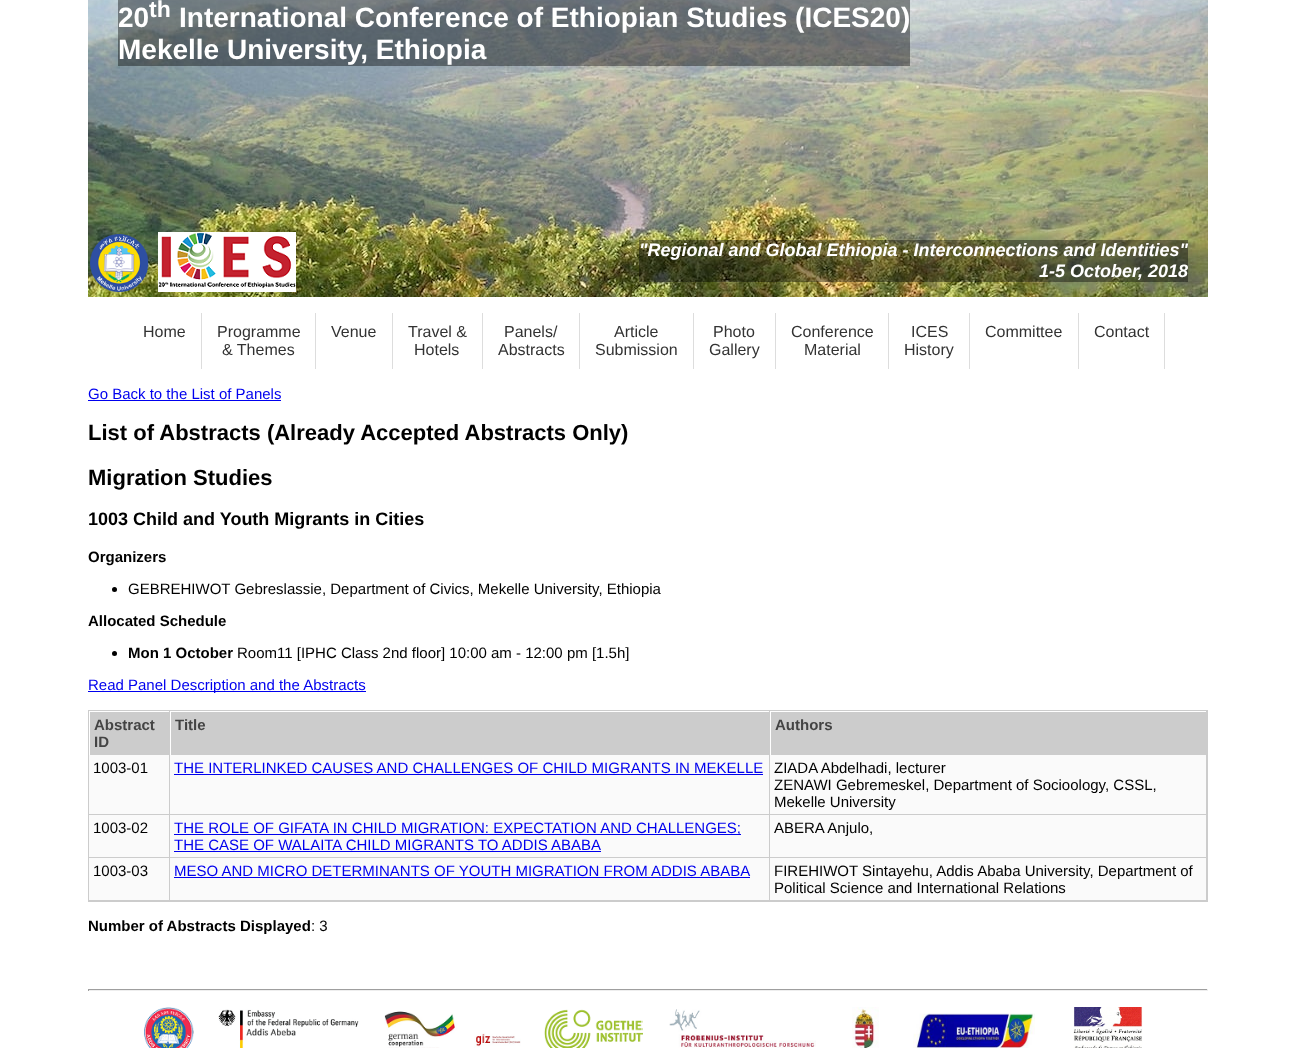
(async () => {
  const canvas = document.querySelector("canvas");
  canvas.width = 1296;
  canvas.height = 1048;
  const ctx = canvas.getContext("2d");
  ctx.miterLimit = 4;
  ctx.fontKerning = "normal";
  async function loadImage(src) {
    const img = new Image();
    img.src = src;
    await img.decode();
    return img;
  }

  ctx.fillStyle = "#ffffff";
  ctx.fillRect(0, 0, 1296, 1048);
  ctx.drawImage(await loadImage("img/1.png"), 88, 0, 1120, 297);
  ctx.fillStyle = "rgba(0, 0, 0, 0.4)";
  ctx.fillRect(118, 0, 792, 66);
  ctx.drawImage(await loadImage("img/2.png"), 90, 234, 59, 58);
  ctx.drawImage(await loadImage("img/3.png"), 158, 232, 138, 60);
  for (const [x, y, w, h, color] of [
    [639, 240, 549, 42, "rgba(0, 0, 0, 0.4)"],
    [201, 313, 1, 56, "#dddddd"],
    [315, 313, 1, 56, "#dddddd"],
    [392, 313, 1, 56, "#dddddd"],
    [482, 313, 1, 56, "#dddddd"],
    [579, 313, 1, 56, "#dddddd"],
    [693, 313, 1, 56, "#dddddd"],
    [775, 313, 1, 56, "#dddddd"],
    [888, 313, 1, 56, "#dddddd"],
    [969, 313, 1, 56, "#dddddd"],
    [1078, 313, 1, 56, "#dddddd"],
    [1164, 313, 1, 56, "#dddddd"],
    [88, 400, 193, 1, "#0000ee"],
  ]) {
    ctx.fillStyle = color;
    ctx.fillRect(x, y, w, h);
  }
  ctx.fillStyle = "#000000";
  ctx.beginPath();
  ctx.arc(114.5, 589.5, 2.5, 0, Math.PI * 2);
  ctx.fill();
  ctx.beginPath();
  ctx.arc(114.5, 653.5, 2.5, 0, Math.PI * 2);
  ctx.fill();
  ctx.fillStyle = "#0000ee";
  ctx.fillRect(88, 691, 278, 1);
  ctx.strokeStyle = "#cccccc";
  ctx.strokeRect(88.5, 710.5, 1119, 191);
  for (const [x, y, w, h, color] of [
    [90, 712, 79, 43, "#cccccc"],
    [169, 711, 1, 190, "#cccccc"],
    [171, 712, 598, 43, "#cccccc"],
    [769, 711, 1, 190, "#cccccc"],
    [771, 712, 435, 43, "#cccccc"],
    [1206, 711, 1, 190, "#cccccc"],
    [89, 755, 80, 59, "#fafafa"],
    [89, 814, 1118, 1, "#cccccc"],
    [170, 755, 599, 59, "#fafafa"],
    [174, 774, 589, 1, "#0000ee"],
    [770, 755, 436, 59, "#fafafa"],
    [89, 815, 80, 42, "#fafafa"],
    [89, 857, 1118, 1, "#cccccc"],
    [170, 815, 599, 42, "#fafafa"],
    [174, 834, 567, 1, "#0000ee"],
    [174, 851, 427, 1, "#0000ee"],
    [770, 815, 436, 42, "#fafafa"],
    [89, 858, 80, 42, "#fafafa"],
    [89, 900, 1118, 1, "#cccccc"],
    [170, 858, 599, 42, "#fafafa"],
    [174, 877, 576, 1, "#0000ee"],
    [770, 858, 436, 42, "#fafafa"],
    [88, 989, 1120, 1, "#9f9f9f"],
    [1207, 989, 1, 2, "#eeeeee"],
    [88, 990, 1120, 1, "#eeeeee"],
    [88, 989, 1, 2, "#9f9f9f"],
  ]) {
    ctx.fillStyle = color;
    ctx.fillRect(x, y, w, h);
  }
  ctx.drawImage(await loadImage("img/4.png"), 144, 1007, 50, 41);
  ctx.drawImage(await loadImage("img/5.png"), 218, 1009, 141, 39);
  ctx.drawImage(await loadImage("img/6.png"), 384, 1011, 137, 37);
  ctx.drawImage(await loadImage("img/7.png"), 544, 1009, 99, 39);
  ctx.drawImage(await loadImage("img/8.png"), 669, 1009, 147, 39);
  ctx.drawImage(await loadImage("img/9.png"), 852, 1007, 27, 41);
  ctx.drawImage(await loadImage("img/10.png"), 913, 1013, 122, 35);
  ctx.drawImage(await loadImage("img/11.png"), 1073, 1007, 70, 41);
  ctx.font = "bold 28px Liberation Sans";
  ctx.fillStyle = "#ffffff";
  ctx.fillText("20", 118, 27);
  ctx.font = "bold 23px Liberation Sans";
  ctx.fillText("th", 149, 17);
  ctx.font = "bold 28px Liberation Sans";
  ctx.fillText("International Conference of Ethiopian Studies (ICES20)", 179, 27);
  ctx.fillText("Mekelle University, Ethiopia", 118, 59);
  ctx.font = "italic bold 18px Liberation Sans";
  ctx.fillText("\"Regional and Global Ethiopia - Interconnections and Identities\"", 639, 256);
  ctx.fillText("1-5 October, 2018", 1039, 277);
  ctx.font = "16px Liberation Sans";
  ctx.fillStyle = "#333333";
  for (const [text, x, y] of [
    ["Home", 143, 337],
    ["Programme", 217, 337],
    ["& Themes", 222, 355],
    ["Venue", 331, 337],
    ["Travel &", 408, 337],
    ["Hotels", 414, 355],
    ["Panels/", 504, 337],
    ["Abstracts", 498, 355],
    ["Article", 614, 337],
    ["Submission", 595, 355],
    ["Photo", 713, 337],
    ["Gallery", 709, 355],
    ["Conference", 791, 337],
    ["Material", 804, 355],
    ["ICES", 911, 337],
    ["History", 904, 355],
    ["Committee", 985, 337],
    ["Contact", 1094, 337],
  ]) {
    ctx.fillText(text, x, y);
  }
  ctx.font = "15px Liberation Sans";
  ctx.fillStyle = "#0000ee";
  ctx.fillText("Go Back to the List of Panels", 88, 399);
  ctx.font = "bold 22px Liberation Sans";
  ctx.fillStyle = "#000000";
  ctx.fillText("List of Abstracts (Already Accepted Abstracts Only)", 88, 440);
  ctx.fillText("Migration Studies", 88, 485);
  ctx.font = "bold 18px Liberation Sans";
  ctx.fillText("1003 Child and Youth Migrants in Cities", 88, 525);
  ctx.font = "bold 15px Liberation Sans";
  ctx.fillText("Organizers", 88, 562);
  ctx.font = "15px Liberation Sans";
  ctx.fillText("GEBREHIWOT Gebreslassie, Department of Civics, Mekelle University, Ethiopia", 128, 594);
  ctx.font = "bold 15px Liberation Sans";
  ctx.fillText("Allocated Schedule", 88, 626);
  ctx.fillText("Mon 1 October", 128, 658);
  ctx.font = "15px Liberation Sans";
  ctx.fillText("Room11 [IPHC Class 2nd floor] 10:00 am - 12:00 pm [1.5h]", 237, 658);
  ctx.fillStyle = "#0000ee";
  ctx.fillText("Read Panel Description and the Abstracts", 88, 690);
  ctx.font = "bold 15px Liberation Sans";
  ctx.fillStyle = "#444444";
  for (const [text, x, y] of [
    ["Abstract", 94, 730],
    ["ID", 94, 747],
    ["Title", 175, 730],
    ["Authors", 775, 730],
  ]) {
    ctx.fillText(text, x, y);
  }
  ctx.font = "15px Liberation Sans";
  ctx.fillStyle = "#000000";
  ctx.fillText("1003-01", 93, 773);
  ctx.fillStyle = "#0000ee";
  ctx.fillText("THE INTERLINKED CAUSES AND CHALLENGES OF CHILD MIGRANTS IN MEKELLE", 174, 773);
  ctx.fillStyle = "#000000";
  for (const [text, x, y] of [
    ["ZIADA Abdelhadi, lecturer", 774, 773],
    ["ZENAWI Gebremeskel, Department of Socioology, CSSL,", 774, 790],
    ["Mekelle University", 774, 807],
    ["1003-02", 93, 833],
  ]) {
    ctx.fillText(text, x, y);
  }
  ctx.fillStyle = "#0000ee";
  ctx.fillText("THE ROLE OF GIFATA IN CHILD MIGRATION: EXPECTATION AND CHALLENGES;", 174, 833);
  ctx.fillText("THE CASE OF WALAITA CHILD MIGRANTS TO ADDIS ABABA", 174, 850);
  ctx.fillStyle = "#000000";
  ctx.fillText("ABERA Anjulo,", 774, 833);
  ctx.fillText("1003-03", 93, 876);
  ctx.fillStyle = "#0000ee";
  ctx.fillText("MESO AND MICRO DETERMINANTS OF YOUTH MIGRATION FROM ADDIS ABABA", 174, 876);
  ctx.fillStyle = "#000000";
  ctx.fillText("FIREHIWOT Sintayehu, Addis Ababa University, Department of", 774, 876);
  ctx.fillText("Political Science and International Relations", 774, 893);
  ctx.font = "bold 15px Liberation Sans";
  ctx.fillText("Number of Abstracts Displayed", 88, 931);
  ctx.font = "15px Liberation Sans";
  ctx.fillText(": 3", 311, 931);
})();
